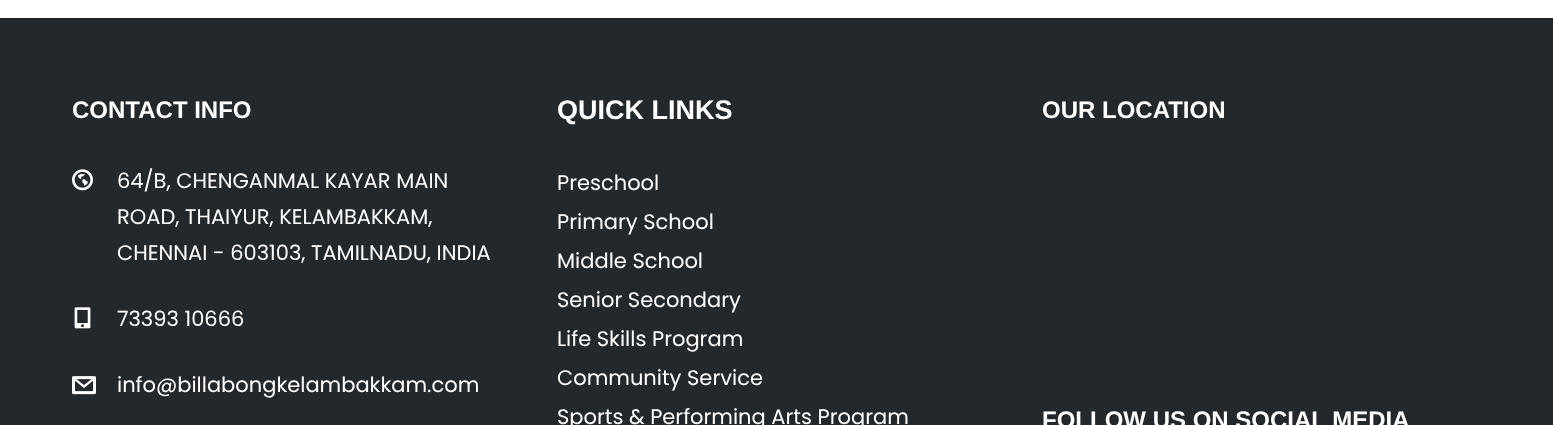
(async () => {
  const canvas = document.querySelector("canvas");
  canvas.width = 1553;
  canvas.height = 425;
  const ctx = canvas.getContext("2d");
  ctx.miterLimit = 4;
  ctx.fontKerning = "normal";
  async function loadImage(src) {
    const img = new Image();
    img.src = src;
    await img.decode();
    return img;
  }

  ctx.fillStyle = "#ffffff";
  ctx.fillRect(0, 0, 1553, 425);
  ctx.fillStyle = "#23282d";
  ctx.fillRect(0, 18, 1553, 407);
  ctx.drawImage(await loadImage("img/1.png"), 72, 169, 21, 22);
  ctx.drawImage(await loadImage("img/2.png"), 74, 307, 17, 22);
  ctx.drawImage(await loadImage("img/3.png"), 72, 376, 24, 19);
  ctx.font = "bold 24px Liberation Sans";
  ctx.fillStyle = "#ffffff";
  ctx.fillText("CONTACT INFO", 72, 118);
  ctx.font = "21px Poppins";
  for (const [text, x, y] of [
    ["64/B, CHENGANMAL KAYAR MAIN", 117, 188],
    ["ROAD, THAIYUR, KELAMBAKKAM,", 117, 224],
    ["CHENNAI - 603103, TAMILNADU, INDIA", 117, 260],
    ["73393 10666", 117, 326],
    ["info@billabongkelambakkam.com", 117, 392],
  ]) {
    ctx.fillText(text, x, y);
  }
  ctx.font = "bold 27px Liberation Sans";
  ctx.fillText("QUICK LINKS", 557, 119);
  ctx.font = "21px Poppins";
  for (const [text, x, y] of [
    ["Preschool", 557, 190],
    ["Primary School", 557, 229],
    ["Middle School", 557, 268],
    ["Senior Secondary", 557, 307],
    ["Life Skills Program", 557, 346],
    ["Community Service", 557, 385],
    ["Sports & Performing Arts Program", 557, 424],
  ]) {
    ctx.fillText(text, x, y);
  }
  ctx.font = "bold 24px Liberation Sans";
  ctx.fillText("OUR LOCATION", 1042, 118);
  ctx.fillText("FOLLOW US ON SOCIAL MEDIA", 1042, 428);
})();
